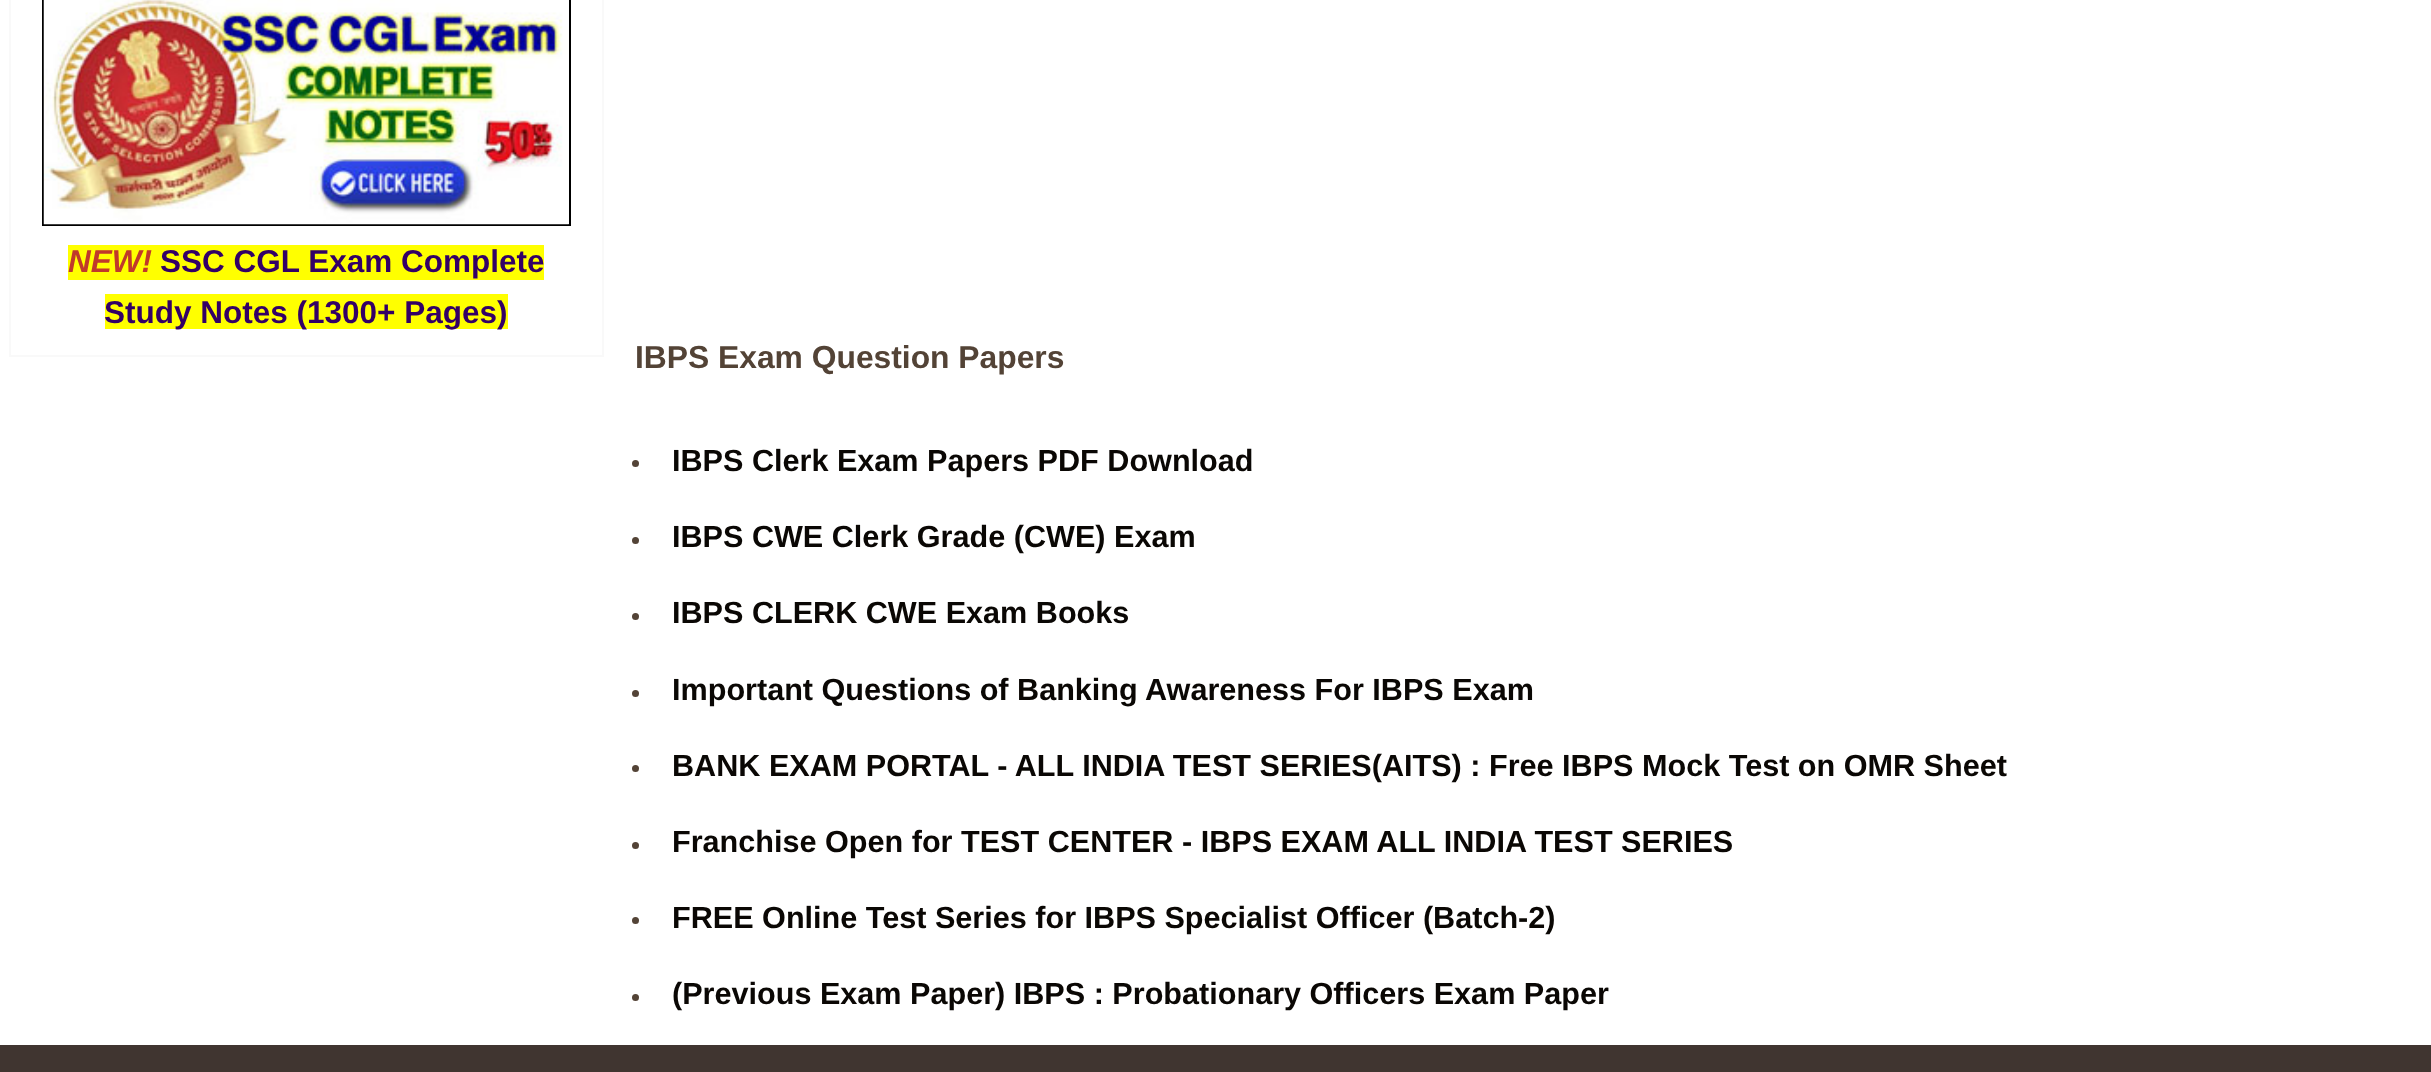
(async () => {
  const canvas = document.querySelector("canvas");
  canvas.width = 2431;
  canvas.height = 1072;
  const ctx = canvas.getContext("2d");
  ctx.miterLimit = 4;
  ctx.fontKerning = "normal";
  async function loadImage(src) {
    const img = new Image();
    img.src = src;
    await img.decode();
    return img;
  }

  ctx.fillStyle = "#ffffff";
  ctx.fillRect(0, 0, 2431, 1072);
  ctx.strokeStyle = "#f9f9f9";
  ctx.lineWidth = 2;
  ctx.strokeRect(10, -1, 593, 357);
  ctx.strokeStyle = "#000000";
  ctx.strokeRect(43, -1, 527, 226);
  ctx.drawImage(await loadImage("img/1.png"), 43, 0, 526, 225);
  ctx.fillStyle = "#ffff00";
  ctx.fillRect(68, 245, 476, 35);
  ctx.fillRect(105, 294, 403, 35);
  ctx.fillStyle = "#534336";
  ctx.beginPath();
  ctx.arc(635.5, 463.5, 3.5, 0, Math.PI * 2);
  ctx.fill();
  ctx.beginPath();
  ctx.arc(635.5, 540.5, 3.5, 0, Math.PI * 2);
  ctx.fill();
  ctx.beginPath();
  ctx.arc(635.5, 616.5, 3.5, 0, Math.PI * 2);
  ctx.fill();
  ctx.beginPath();
  ctx.arc(635.5, 693.5, 3.5, 0, Math.PI * 2);
  ctx.fill();
  ctx.beginPath();
  ctx.arc(635.5, 768.5, 3.5, 0, Math.PI * 2);
  ctx.fill();
  ctx.beginPath();
  ctx.arc(635.5, 845.5, 3.5, 0, Math.PI * 2);
  ctx.fill();
  ctx.beginPath();
  ctx.arc(635.5, 920.5, 3.5, 0, Math.PI * 2);
  ctx.fill();
  ctx.beginPath();
  ctx.arc(635.5, 997.5, 3.5, 0, Math.PI * 2);
  ctx.fill();
  ctx.fillStyle = "#403530";
  ctx.fillRect(0, 1045, 2431, 27);
  ctx.font = "italic bold 31.5px Liberation Sans";
  ctx.fillStyle = "#c0392b";
  ctx.fillText("NEW!", 68, 272);
  ctx.font = "bold 31.5px Liberation Sans";
  ctx.fillStyle = "#330066";
  ctx.fillText("SSC CGL Exam Complete", 160, 272);
  ctx.fillText("Study Notes (1300+ Pages)", 104, 323);
  ctx.font = "bold 31.8px Liberation Sans";
  ctx.fillStyle = "#534336";
  ctx.fillText("IBPS Exam Question Papers", 635, 368);
  ctx.font = "bold 30.6px Liberation Sans";
  ctx.fillStyle = "#0a0704";
  for (const [text, x, y] of [
    ["IBPS Clerk Exam Papers PDF Download", 672, 471],
    ["IBPS CWE Clerk Grade (CWE) Exam", 672, 547],
    ["IBPS CLERK CWE Exam Books", 672, 623],
    ["Important Questions of Banking Awareness For IBPS Exam", 672, 700],
    ["BANK EXAM PORTAL - ALL INDIA TEST SERIES(AITS) : Free IBPS Mock Test on OMR Sheet", 672, 776],
    ["Franchise Open for TEST CENTER - IBPS EXAM ALL INDIA TEST SERIES", 672, 852],
    ["FREE Online Test Series for IBPS Specialist Officer (Batch-2)", 672, 928],
    ["(Previous Exam Paper) IBPS : Probationary Officers Exam Paper", 672, 1004],
  ]) {
    ctx.fillText(text, x, y);
  }
})();
